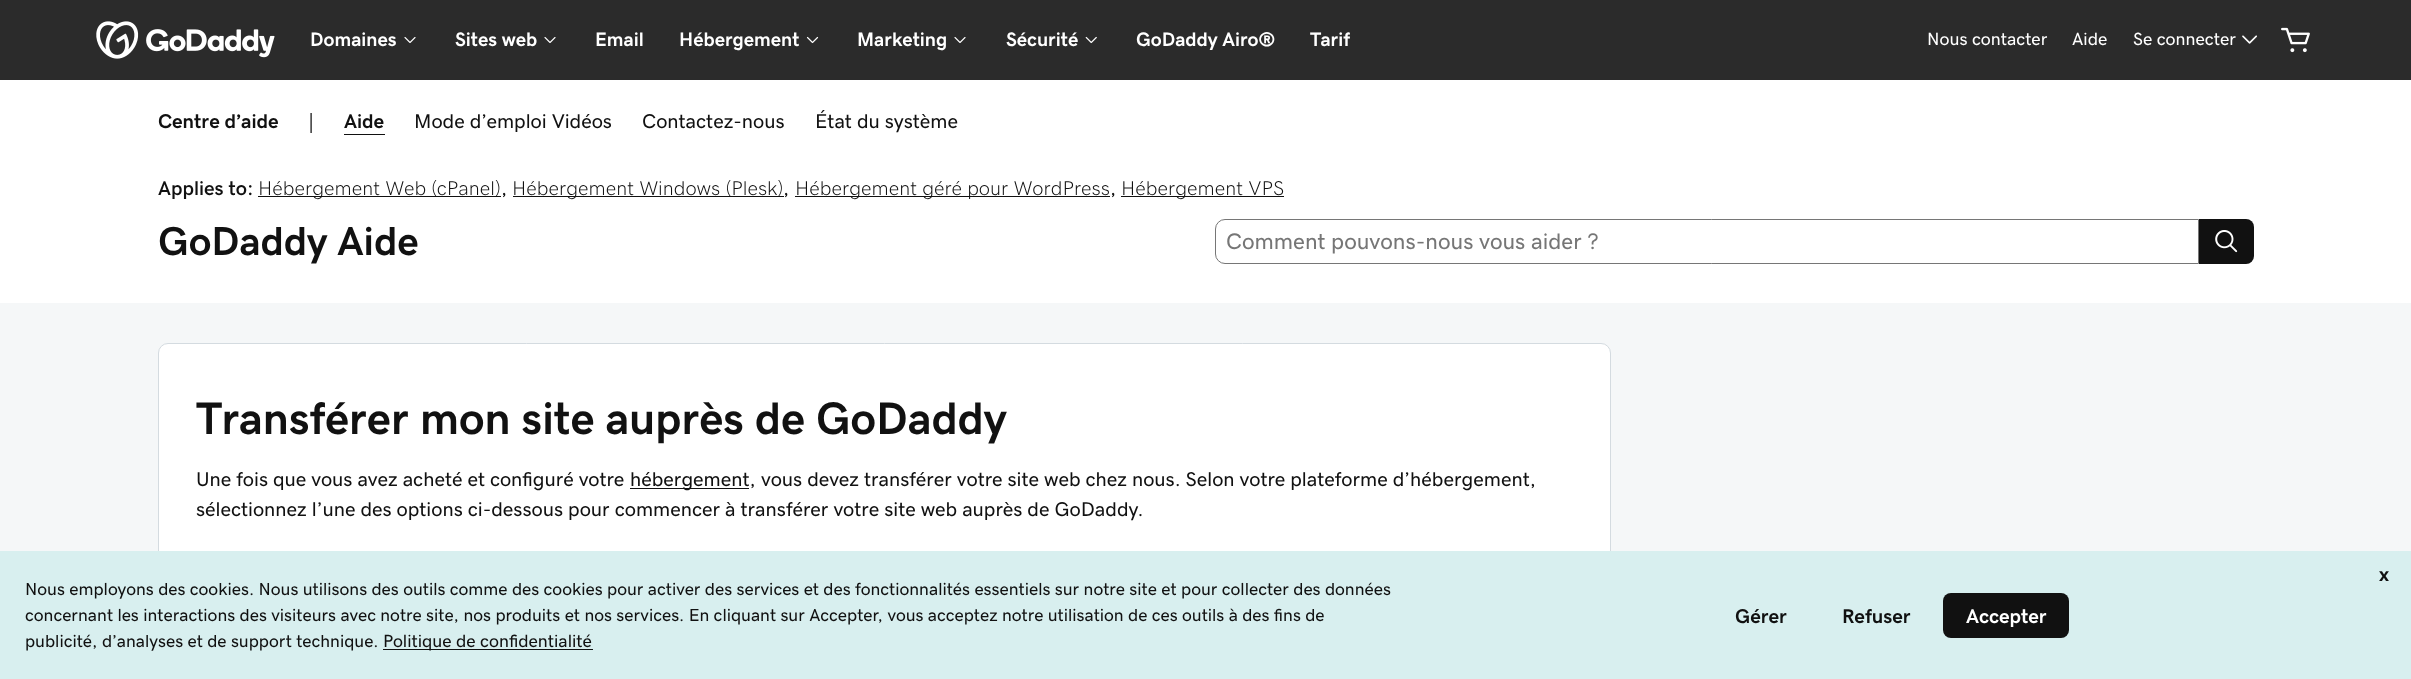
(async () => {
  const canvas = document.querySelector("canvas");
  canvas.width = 2411;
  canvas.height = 679;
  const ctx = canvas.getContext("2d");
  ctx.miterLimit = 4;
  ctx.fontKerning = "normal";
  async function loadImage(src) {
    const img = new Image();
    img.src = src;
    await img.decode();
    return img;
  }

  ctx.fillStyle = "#ffffff";
  ctx.fillRect(0, 0, 2411, 679);
  ctx.fillStyle = "#2b2b2b";
  ctx.fillRect(0, 0, 2411, 80);
  ctx.drawImage(await loadImage("img/1.png"), 96, 21, 179, 38);
  ctx.drawImage(await loadImage("img/2.png"), 404, 37, 12, 6);
  ctx.drawImage(await loadImage("img/2.png"), 544, 37, 12, 6);
  ctx.drawImage(await loadImage("img/3.png"), 806, 36, 13, 8);
  ctx.drawImage(await loadImage("img/2.png"), 954, 37, 12, 6);
  ctx.drawImage(await loadImage("img/4.png"), 1085, 36, 12, 8);
  ctx.drawImage(await loadImage("img/5.png"), 2242, 35, 15, 9);
  ctx.drawImage(await loadImage("img/6.png"), 2281, 27, 29, 26);
  for (const [x, y, w, h, color] of [
    [344, 134, 41, 1, "#111111"],
    [258, 196, 243, 1, "#111111"],
    [513, 196, 271, 1, "#111111"],
    [795, 196, 315, 1, "#111111"],
    [1121, 196, 163, 1, "#111111"],
  ]) {
    ctx.fillStyle = color;
    ctx.fillRect(x, y, w, h);
  }
  ctx.beginPath();
  ctx.roundRect(1215.5, 219.5, 983, 44, [9.5, 0, 0, 9.5]);
  ctx.strokeStyle = "#767676";
  ctx.stroke();
  ctx.beginPath();
  ctx.roundRect(2199, 219, 55, 45, [0, 8, 8, 0]);
  ctx.fill();
  ctx.drawImage(await loadImage("img/7.png"), 2215, 230, 23, 23);
  ctx.fillStyle = "#f5f7f8";
  ctx.fillRect(0, 303, 2411, 248);
  ctx.fillStyle = "#ffffff";
  ctx.beginPath();
  ctx.roundRect(158.5, 343.5, 1452, 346, 9.5);
  ctx.fill();
  ctx.strokeStyle = "#d4dbe0";
  ctx.stroke();
  for (const [x, y, w, h, color] of [
    [630, 488, 119, 1, "#111111"],
    [0, 551, 2411, 128, "#d8efef"],
    [383, 649, 210, 1, "#111111"],
  ]) {
    ctx.fillStyle = color;
    ctx.fillRect(x, y, w, h);
  }
  ctx.beginPath();
  ctx.roundRect(1943, 593, 126, 45, 8);
  ctx.fill();
  ctx.font = "800 19.5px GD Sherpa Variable";
  ctx.fillStyle = "#ffffff";
  for (const [text, x, y] of [
    ["Domaines", 310, 46],
    ["Sites web", 455, 46],
    ["Email", 595, 46],
    ["Hébergement", 679, 46],
    ["Marketing", 857, 46],
    ["Sécurité", 1006, 46],
    ["GoDaddy Airo®", 1136, 46],
    ["Tarif", 1310, 46],
  ]) {
    ctx.fillText(text, x, y);
  }
  ctx.font = "17.75px GD Sherpa Variable";
  for (const [text, x, y] of [
    ["Nous contacter", 1927, 45],
    ["Aide", 2072, 45],
    ["Se connecter", 2133, 45],
  ]) {
    ctx.fillText(text, x, y);
  }
  ctx.font = "bold 20px GD Sherpa Variable";
  ctx.fillStyle = "#111111";
  ctx.fillText("Centre d’aide", 158, 128);
  ctx.font = "20px GD Sherpa Variable";
  ctx.fillText("|", 308, 128);
  ctx.font = "bold 20px GD Sherpa Variable";
  ctx.fillText("Aide", 344, 128);
  ctx.font = "20px GD Sherpa Variable";
  for (const [text, x, y] of [
    ["Mode d’emploi Vidéos", 414, 128],
    ["Contactez-nous", 642, 128],
    ["État du système", 815, 128],
  ]) {
    ctx.fillText(text, x, y);
  }
  ctx.font = "600 20px GD Sherpa Variable";
  ctx.fillText("Applies to:", 158, 195);
  ctx.font = "200 20px GD Sherpa Variable";
  ctx.fillText("Hébergement Web (cPanel)", 258, 195);
  ctx.font = "20px GD Sherpa Variable";
  ctx.fillText(",", 501, 195);
  ctx.font = "200 20px GD Sherpa Variable";
  ctx.fillText("Hébergement Windows (Plesk)", 512, 195);
  ctx.font = "20px GD Sherpa Variable";
  ctx.fillText(",", 783, 195);
  ctx.font = "200 20px GD Sherpa Variable";
  ctx.fillText("Hébergement géré pour WordPress", 795, 195);
  ctx.font = "20px GD Sherpa Variable";
  ctx.fillText(",", 1110, 195);
  ctx.font = "200 20px GD Sherpa Variable";
  ctx.fillText("Hébergement VPS", 1121, 195);
  ctx.font = "bold 40.5px GD Sherpa Variable";
  ctx.fillText("GoDaddy Aide", 158, 255);
  ctx.font = "22.5px GD Sherpa Variable";
  ctx.fillStyle = "#767676";
  ctx.fillText("Comment pouvons-nous vous aider ?", 1226, 249);
  ctx.font = "800 45.6px GD Sherpa Variable";
  ctx.fillStyle = "#111111";
  ctx.fillText("Transférer mon site auprès de GoDaddy", 196, 434);
  ctx.font = "20px GD Sherpa Variable";
  for (const [text, x, y] of [
    ["Une fois que vous avez acheté et configuré votre", 196, 486],
    ["hébergement, vous devez transférer votre site web chez nous. Selon votre plateforme d’hébergement,", 630, 486],
    ["sélectionnez l’une des options ci-dessous pour commencer à transférer votre site web auprès de GoDaddy.", 196, 516],
  ]) {
    ctx.fillText(text, x, y);
  }
  ctx.font = "bold 20px 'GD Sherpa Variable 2'";
  ctx.fillText("x", 2379, 581);
  ctx.font = "17.5px GD Sherpa Variable";
  for (const [text, x, y] of [
    ["Nous employons des cookies. Nous utilisons des outils comme des cookies pour activer des services et des fonctionnalités essentiels sur notre site et pour collecter des données", 25, 595],
    ["concernant les interactions des visiteurs avec notre site, nos produits et nos services. En cliquant sur Accepter, vous acceptez notre utilisation de ces outils à des fins de", 25, 621],
    ["publicité, d’analyses et de support technique.", 25, 647],
  ]) {
    ctx.fillText(text, x, y);
  }
  ctx.font = "17.75px GD Sherpa Variable";
  ctx.fillText("Politique de confidentialité", 383, 647);
  ctx.font = "bold 20px 'GD Sherpa Variable 2'";
  ctx.fillText("Gérer", 1735, 623);
  ctx.fillText("Refuser", 1842, 623);
  ctx.fillStyle = "#ffffff";
  ctx.fillText("Accepter", 1966, 623);
})();
